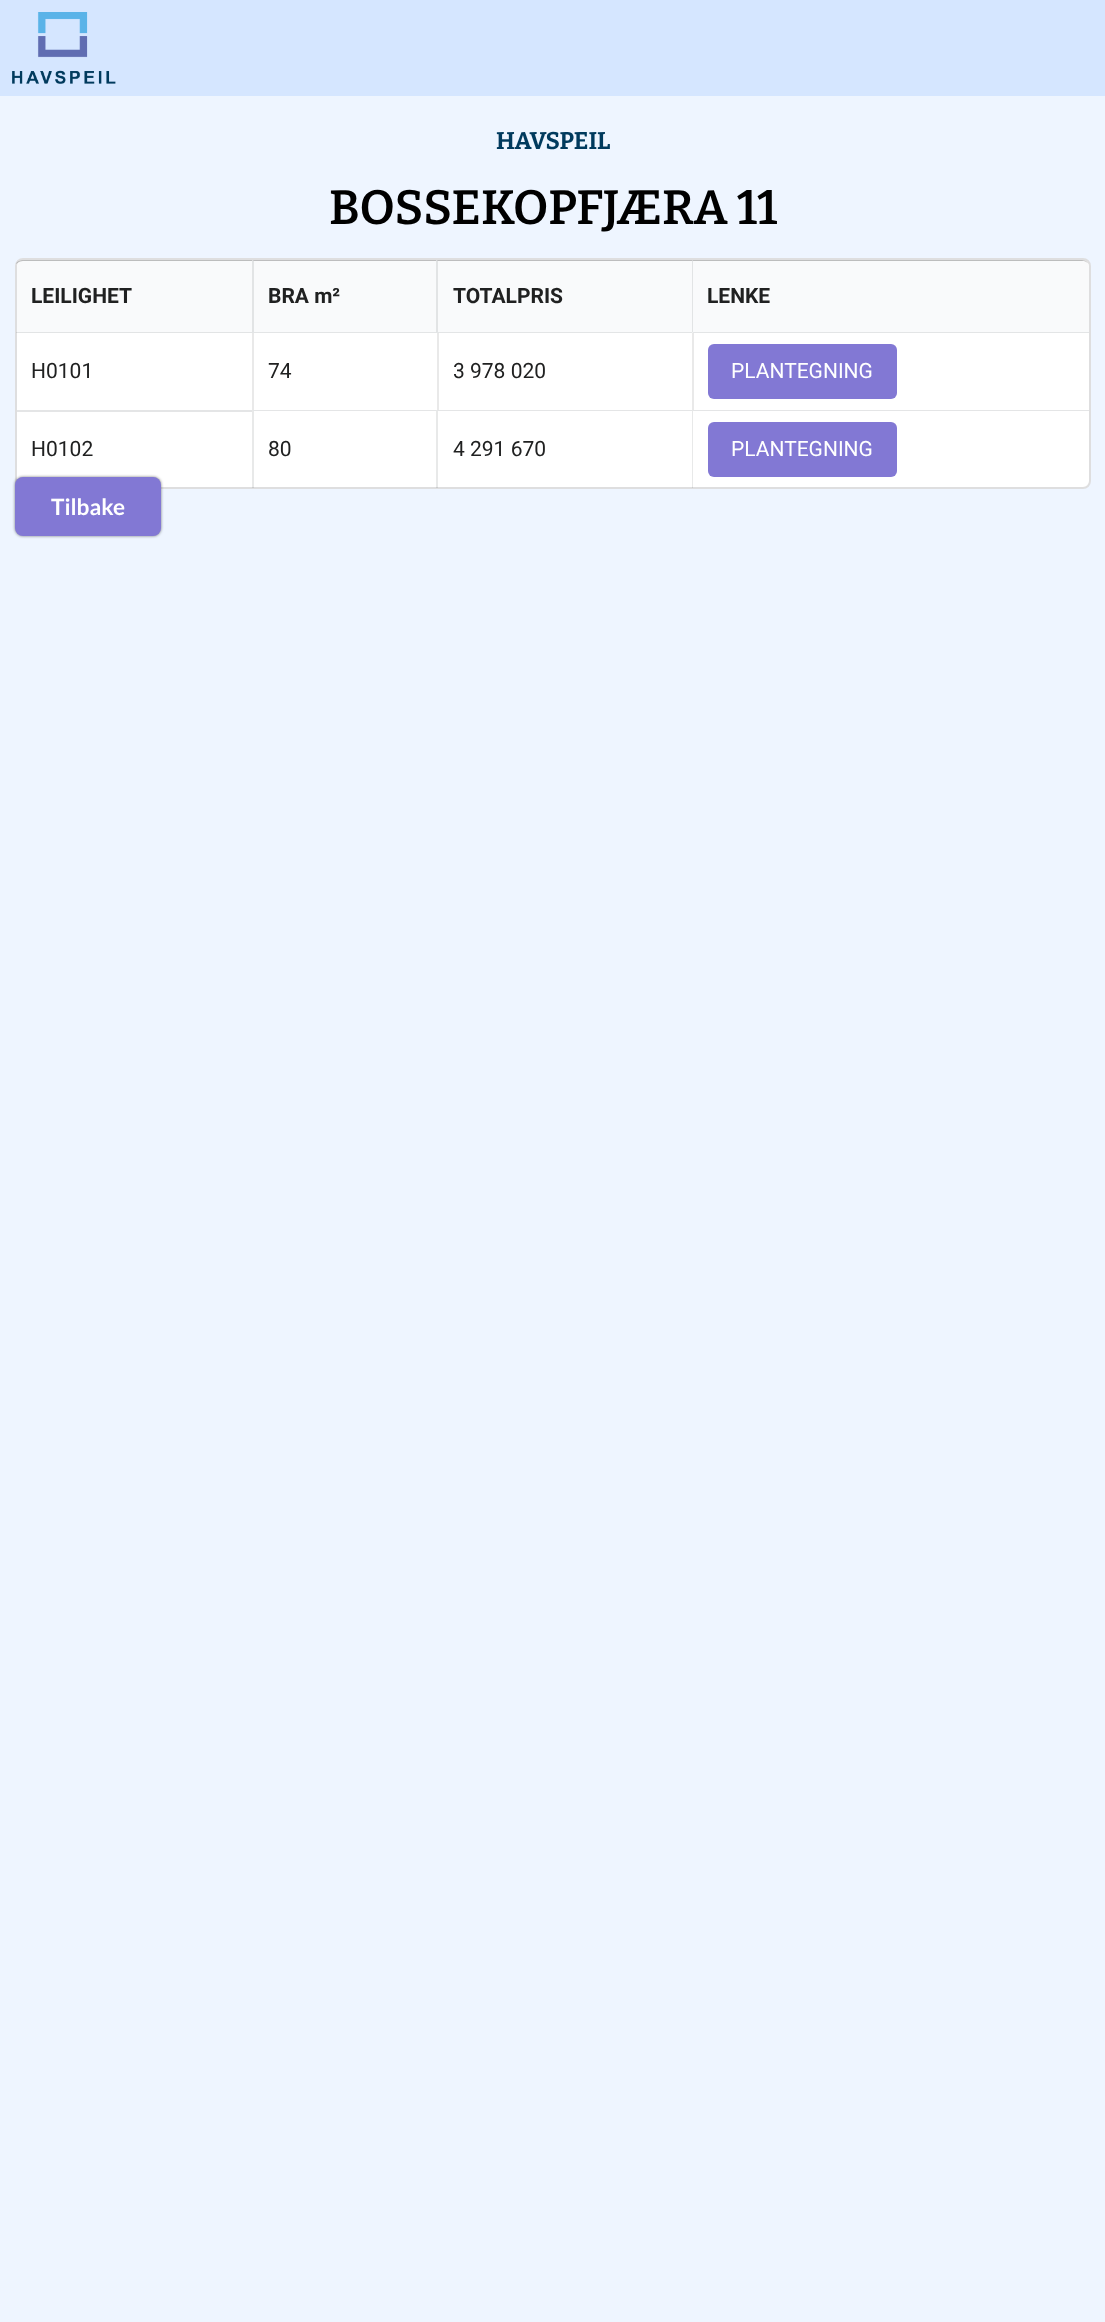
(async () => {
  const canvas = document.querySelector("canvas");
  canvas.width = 1105;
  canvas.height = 2322;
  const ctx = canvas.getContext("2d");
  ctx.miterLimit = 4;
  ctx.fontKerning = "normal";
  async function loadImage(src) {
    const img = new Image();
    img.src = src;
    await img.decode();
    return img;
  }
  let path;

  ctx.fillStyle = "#eef5ff";
  ctx.fillRect(0, 0, 1105, 2322);
  ctx.fillStyle = "#d5e6ff";
  ctx.fillRect(0, 0, 1105, 96);
  ctx.drawImage(await loadImage("img/1.png"), 12, 12, 104, 72);
  ctx.fillStyle = "#ffffff";
  ctx.beginPath();
  ctx.roundRect(15, 258, 1076, 231, 8);
  ctx.fill();
  ctx.beginPath();
  ctx.roundRect(16, 259, 1074, 229, 7);
  ctx.strokeStyle = "rgba(34, 36, 38, 0.15)";
  ctx.lineWidth = 2;
  ctx.stroke();
  ctx.fillStyle = "#f9fafb";
  ctx.beginPath();
  ctx.roundRect(17, 260, 235, 73, [8, 0, 0, 0]);
  ctx.fill();
  ctx.fillStyle = "rgba(128, 128, 128, 0.5)";
  path = new Path2D("M23 260H252V261H23C21 261 18 262 16 264C16 262 21 260 23 260Z");
  ctx.fill(path);
  ctx.fillStyle = "rgba(34, 36, 38, 0.1)";
  ctx.fillRect(16, 332, 236, 1);
  ctx.fillStyle = "#f9fafb";
  ctx.fillRect(252, 260, 440, 73);
  ctx.fillStyle = "#bdbdbe";
  path = new Path2D("M252 260H436V261H254Z");
  ctx.fill(path);
  ctx.fillStyle = "#e3e5e6";
  path = new Path2D("M436 333H252L254 332H436Z");
  ctx.fill(path);
  ctx.fillStyle = "rgba(34, 36, 38, 0.1)";
  path = new Path2D("M252 333V260L254 261V332Z");
  ctx.fill(path);
  ctx.fillStyle = "#bdbdbe";
  path = new Path2D("M436 260H692V261H438Z");
  ctx.fill(path);
  ctx.fillStyle = "#e3e5e6";
  path = new Path2D("M692 333H436L438 332H692Z");
  ctx.fill(path);
  ctx.fillStyle = "rgba(34, 36, 38, 0.1)";
  path = new Path2D("M436 333V260L438 261V332Z");
  ctx.fill(path);
  ctx.fillStyle = "#f9fafb";
  ctx.beginPath();
  ctx.roundRect(692, 260, 397, 73, [0, 8, 0, 0]);
  ctx.fill();
  ctx.fillStyle = "rgba(128, 128, 128, 0.5)";
  path = new Path2D("M692 260H1082C1086 260 1089 263 1089 266C1089 263 1086 261 1082 261H693Z");
  ctx.fill(path);
  ctx.fillStyle = "#e3e5e6";
  path = new Path2D("M1089 333V332H693L692 333Z");
  ctx.fill(path);
  ctx.fillStyle = "rgba(34, 36, 38, 0.1)";
  path = new Path2D("M692 260L693 261V332H692Z");
  ctx.fill(path);
  for (const [x, y, w, h, color] of [
    [252, 333, 2, 77, "#e9e9e9"],
    [437, 333, 2, 77, "#e9e9e9"],
    [692, 333, 2, 77, "#e9e9e9"],
  ]) {
    ctx.fillStyle = color;
    ctx.fillRect(x, y, w, h);
  }
  ctx.fillStyle = "#8278d4";
  ctx.beginPath();
  ctx.roundRect(708, 344, 189, 55, 6);
  ctx.fill();
  ctx.fillStyle = "#e4e5e6";
  ctx.fillRect(17, 410, 235, 2);
  path = new Path2D("M252 410H436V411H254Z");
  ctx.fill(path);
  ctx.fillStyle = "rgba(34, 36, 38, 0.1)";
  path = new Path2D("M252 488V410L254 411V488Z");
  ctx.fill(path);
  ctx.fillStyle = "#e4e5e6";
  path = new Path2D("M436 410H692V411H438Z");
  ctx.fill(path);
  ctx.fillStyle = "rgba(34, 36, 38, 0.1)";
  path = new Path2D("M436 488V410L438 411V488Z");
  ctx.fill(path);
  ctx.fillStyle = "#e4e5e6";
  path = new Path2D("M692 410H1089V411H693Z");
  ctx.fill(path);
  ctx.fillStyle = "rgba(34, 36, 38, 0.1)";
  path = new Path2D("M692 488V410L693 411V488Z");
  ctx.fill(path);
  ctx.fillStyle = "#8278d4";
  ctx.beginPath();
  ctx.roundRect(708, 422, 189, 55, 6);
  ctx.fill();
  ctx.fillStyle = "rgba(0, 0, 0, 0.5)";
  ctx.filter = "blur(1.5px)";
  ctx.beginPath();
  ctx.roundRect(15, 477, 146, 59, 8);
  ctx.fill();
  ctx.filter = "none";
  ctx.fillStyle = "#8278d4";
  ctx.beginPath();
  ctx.roundRect(15, 477, 146, 59, 8);
  ctx.fill();
  ctx.font = "bold 24px Bitter";
  ctx.fillStyle = "#003a5d";
  ctx.fillText("HAVSPEIL", 496, 149);
  ctx.font = "600 48px Bitter";
  ctx.fillStyle = "#000000";
  ctx.fillText("BOSSEKOPFJÆRA 11", 329, 224);
  ctx.font = "bold 21px Roboto";
  ctx.fillStyle = "#202121";
  for (const [text, x, y] of [
    ["LEILIGHET", 31, 303],
    ["BRA m²", 268, 303],
    ["TOTALPRIS", 453, 303],
    ["LENKE", 707, 303],
  ]) {
    ctx.fillText(text, x, y);
  }
  ctx.font = "21px Roboto";
  for (const [text, x, y] of [
    ["H0101", 31, 378],
    ["74", 268, 378],
    ["3 978 020", 453, 378],
  ]) {
    ctx.fillText(text, x, y);
  }
  ctx.fillStyle = "#ffffff";
  ctx.fillText("PLANTEGNING", 731, 378);
  ctx.fillStyle = "#202121";
  for (const [text, x, y] of [
    ["H0102", 31, 456],
    ["80", 268, 456],
    ["4 291 670", 453, 456],
  ]) {
    ctx.fillText(text, x, y);
  }
  ctx.fillStyle = "#ffffff";
  ctx.fillText("PLANTEGNING", 731, 456);
  ctx.font = "bold 22.5px Lato";
  ctx.fillText("Tilbake", 51, 515);
})();
